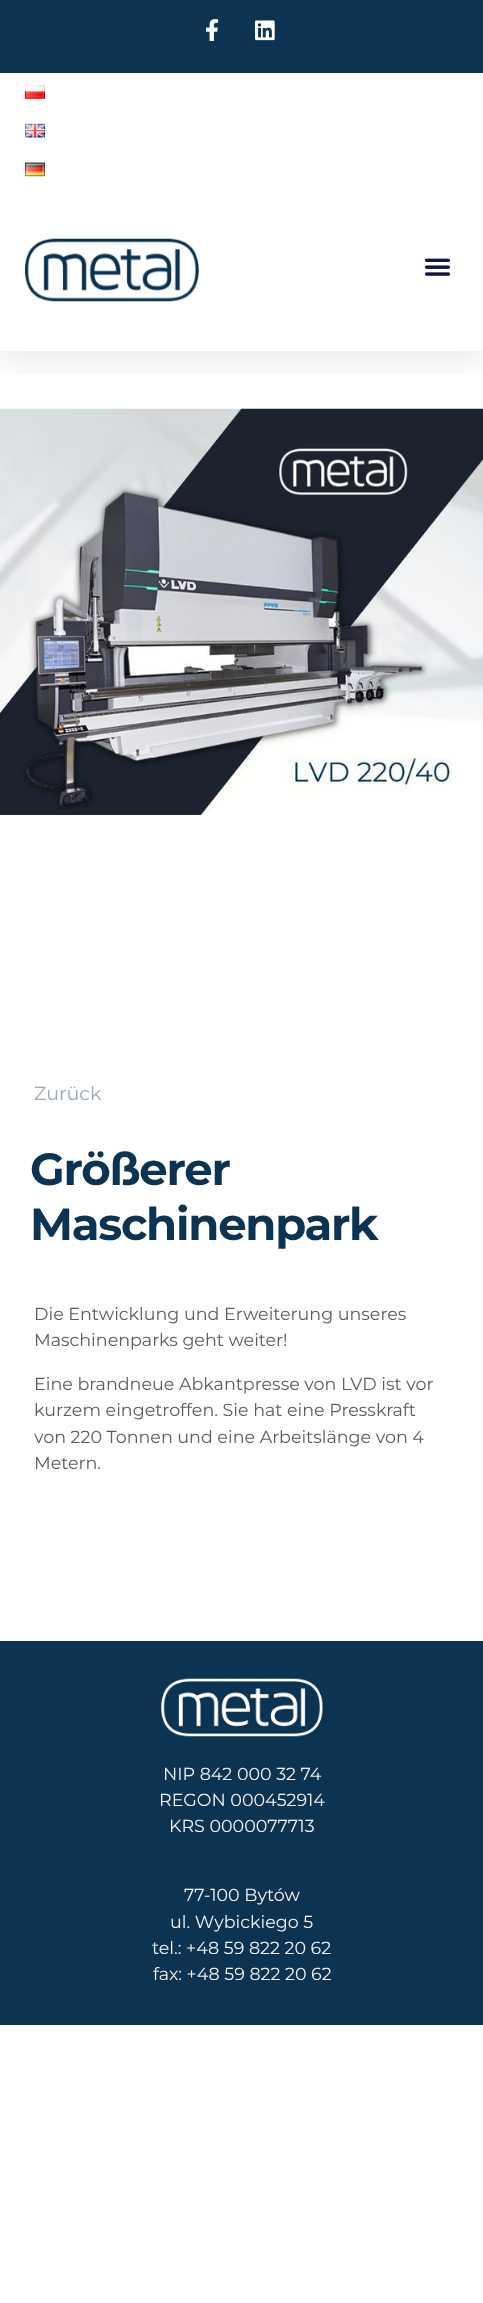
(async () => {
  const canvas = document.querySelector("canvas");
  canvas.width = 483;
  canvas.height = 2303;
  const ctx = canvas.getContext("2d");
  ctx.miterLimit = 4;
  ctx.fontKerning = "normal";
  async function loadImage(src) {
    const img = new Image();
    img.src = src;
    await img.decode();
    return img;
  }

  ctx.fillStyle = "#ffffff";
  ctx.fillRect(0, 0, 483, 2303);
  ctx.drawImage(await loadImage("img/8.png"), 0, 408, 483, 407);
  ctx.save();
  ctx.beginPath();
  ctx.rect(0, 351, 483, 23);
  ctx.clip();
  ctx.fillStyle = "rgba(0, 0, 0, 0.1)";
  ctx.filter = "blur(19px)";
  ctx.beginPath();
  ctx.rect(0, 6, 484, 352);
  ctx.fill();
  ctx.filter = "none";
  ctx.restore();
  ctx.fillStyle = "#0c3351";
  ctx.fillRect(0, 0, 483, 73);
  ctx.drawImage(await loadImage("img/1.png"), 206, 19, 13, 22);
  ctx.drawImage(await loadImage("img/2.png"), 255, 20, 20, 21);
  ctx.drawImage(await loadImage("img/3.png"), 25, 85, 20, 14);
  ctx.drawImage(await loadImage("img/4.png"), 25, 123, 20, 15);
  ctx.drawImage(await loadImage("img/5.png"), 25, 162, 20, 15);
  ctx.drawImage(await loadImage("img/6.png"), 25, 238, 174, 64);
  ctx.drawImage(await loadImage("img/7.png"), 424, 258, 27, 18);
  ctx.fillRect(0, 1641, 483, 384);
  ctx.drawImage(await loadImage("img/9.png"), 161, 1678, 162, 59);
  ctx.font = "19px Montserrat";
  ctx.fillStyle = "#9aa8ba";
  ctx.fillText("Zurück", 34, 1100);
  ctx.letterSpacing = "-1.25px";
  ctx.font = "bold 45px Montserrat";
  ctx.fillStyle = "#0c3351";
  ctx.fillText("Größerer", 30, 1185);
  ctx.fillText("Maschinenpark", 30, 1240);
  ctx.letterSpacing = "0px";
  ctx.font = "17.5px Montserrat";
  ctx.fillStyle = "#5f5b5b";
  for (const [text, x, y] of [
    ["Die Entwicklung und Erweiterung unseres", 34, 1320],
    ["Maschinenparks geht weiter!", 34, 1346],
    ["Eine brandneue Abkantpresse von LVD ist vor", 34, 1390],
    ["kurzem eingetroffen. Sie hat eine Presskraft", 34, 1416],
    ["von 220 Tonnen und eine Arbeitslänge von 4", 34, 1443],
    ["Metern.", 34, 1469],
  ]) {
    ctx.fillText(text, x, y);
  }
  ctx.fillStyle = "#f4f4f4";
  for (const [text, x, y] of [
    ["NIP 842 000 32 74", 163, 1780],
    ["REGON 000452914", 159, 1806],
    ["KRS 0000077713", 169, 1832],
    ["77-100 Bytów", 184, 1901],
    ["ul. Wybickiego 5", 170, 1928],
    ["tel.: +48 59 822 20 62", 152, 1954],
    ["fax: +48 59 822 20 62", 153, 1980],
  ]) {
    ctx.fillText(text, x, y);
  }
})();
